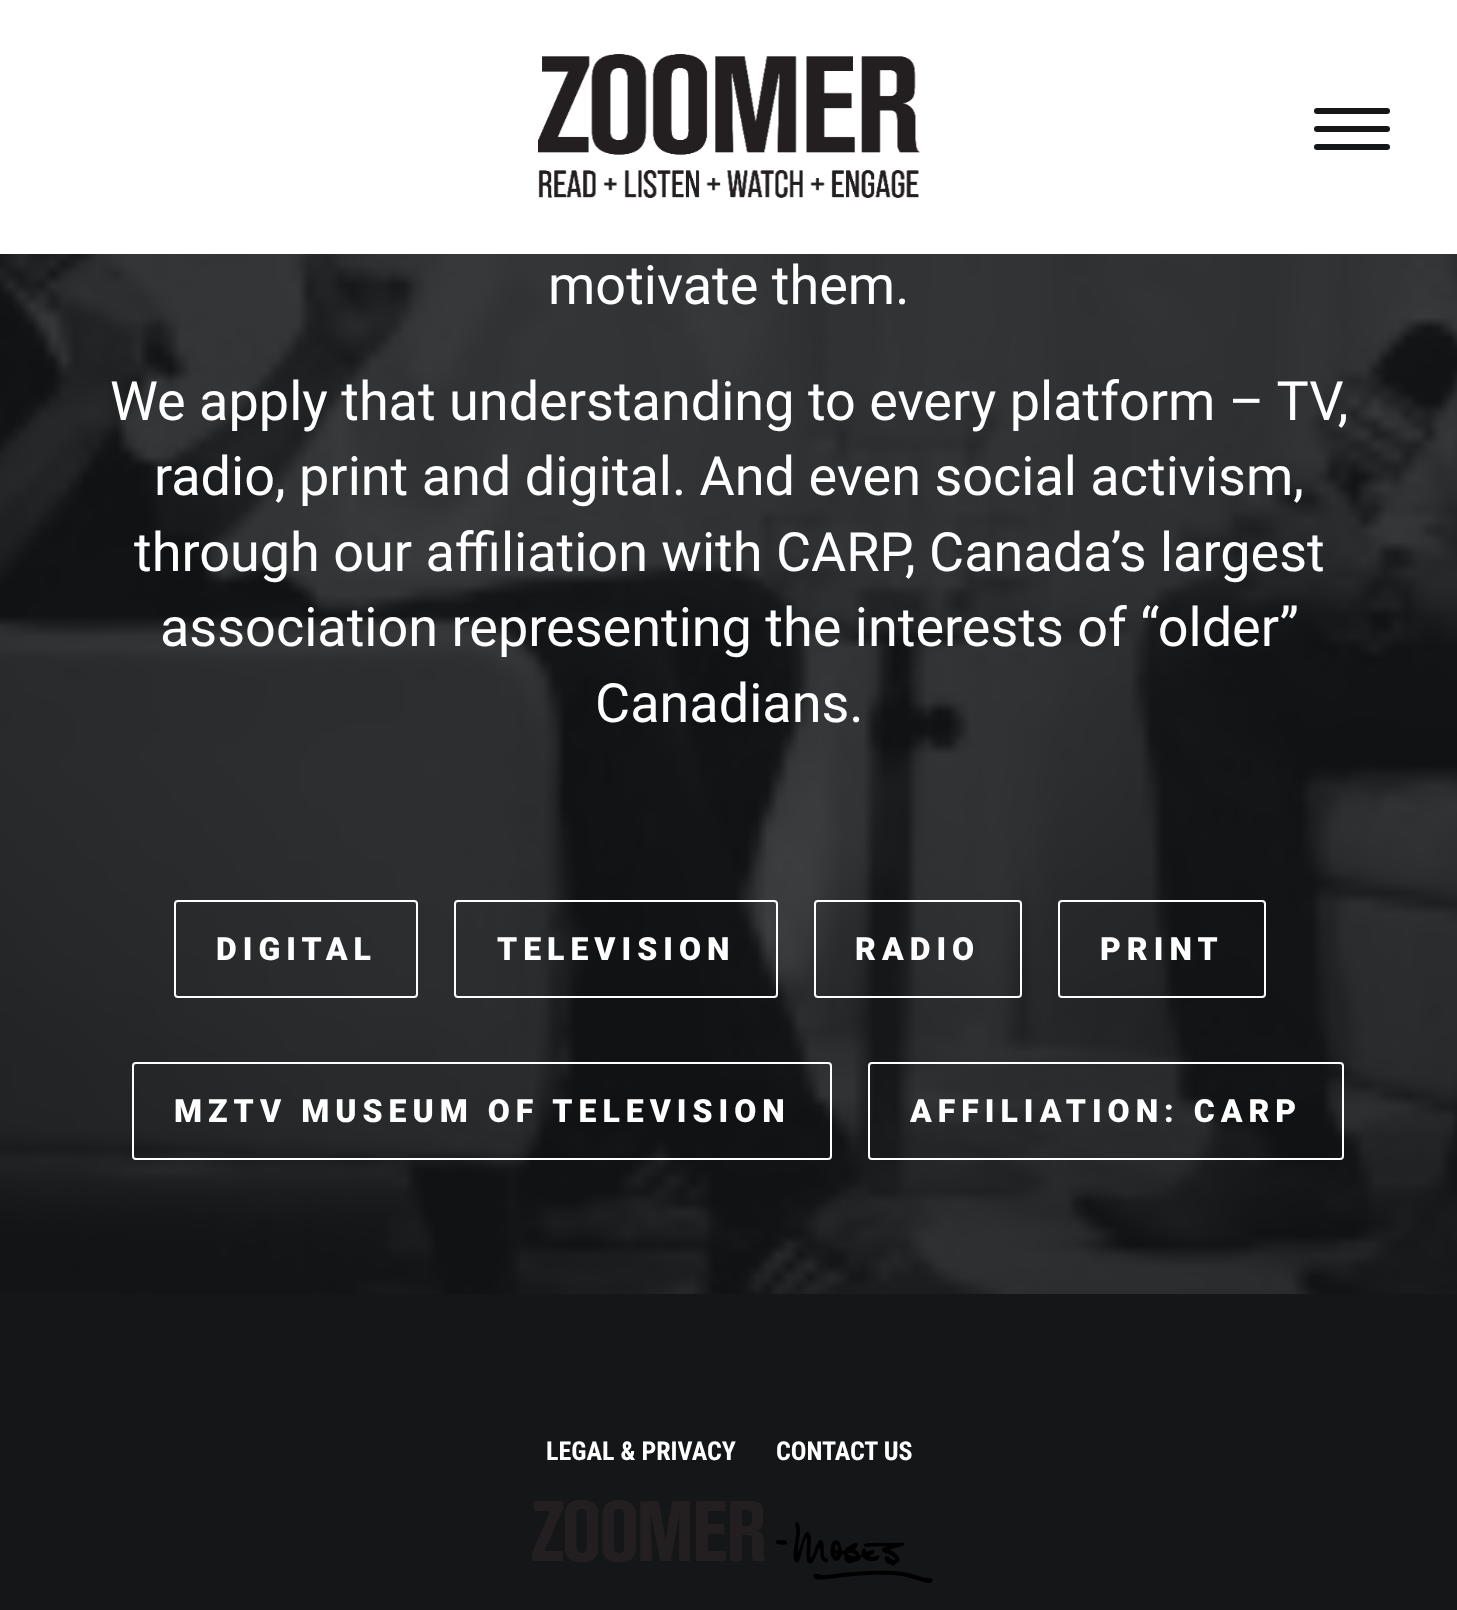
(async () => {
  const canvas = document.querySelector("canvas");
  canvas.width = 1457;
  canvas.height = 1610;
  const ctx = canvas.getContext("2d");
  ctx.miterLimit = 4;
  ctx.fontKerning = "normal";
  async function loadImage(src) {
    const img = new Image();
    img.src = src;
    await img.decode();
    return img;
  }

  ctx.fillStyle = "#ffffff";
  ctx.fillRect(0, 0, 1457, 1610);
  ctx.drawImage(await loadImage("img/1.png"), 538, 54, 382, 144);
  ctx.fillStyle = "#141618";
  ctx.beginPath();
  ctx.roundRect(1314, 126, 76, 6, 3);
  ctx.fill();
  ctx.beginPath();
  ctx.roundRect(1314, 108, 76, 6, 3);
  ctx.fill();
  ctx.beginPath();
  ctx.roundRect(1314, 144, 76, 6, 3);
  ctx.fill();
  ctx.drawImage(await loadImage("img/2.png"), 0, 254, 1457, 1040);
  ctx.beginPath();
  ctx.roundRect(175, 901, 242, 96, 3);
  ctx.strokeStyle = "#ffffff";
  ctx.lineWidth = 2;
  ctx.stroke();
  ctx.beginPath();
  ctx.roundRect(455, 901, 322, 96, 3);
  ctx.stroke();
  ctx.beginPath();
  ctx.roundRect(815, 901, 206, 96, 3);
  ctx.stroke();
  ctx.beginPath();
  ctx.roundRect(1059, 901, 206, 96, 3);
  ctx.stroke();
  ctx.beginPath();
  ctx.roundRect(133, 1063, 698, 96, 3);
  ctx.stroke();
  ctx.beginPath();
  ctx.roundRect(869, 1063, 474, 96, 3);
  ctx.stroke();
  ctx.fillRect(0, 1294, 1457, 316);
  ctx.drawImage(await loadImage("img/3.png"), 532, 1500, 401, 83);
  ctx.font = "54px Roboto";
  ctx.fillStyle = "#ffffff";
  for (const [text, x, y] of [
    ["motivate them.", 548, 304],
    ["We apply that understanding to every platform – TV,", 110, 420],
    ["radio, print and digital. And even social activism,", 154, 495],
    ["through our affiliation with CARP, Canada’s largest", 134, 571],
    ["association representing the interests of “older”", 160, 646],
    ["Canadians.", 595, 722],
  ]) {
    ctx.fillText(text, x, y);
  }
  ctx.letterSpacing = "6px";
  ctx.font = "900 32px Roboto";
  for (const [text, x, y] of [
    ["DIGITAL", 216, 960],
    ["TELEVISION", 497, 960],
    ["RADIO", 855, 960],
    ["PRINT", 1100, 960],
    ["MZTV MUSEUM OF TELEVISION", 174, 1122],
    ["AFFILIATION: CARP", 910, 1122],
  ]) {
    ctx.fillText(text, x, y);
  }
  ctx.letterSpacing = "0px";
  ctx.font = "bold 26px Roboto Condensed";
  ctx.fillText("LEGAL & PRIVACY", 546, 1460);
  ctx.fillText("CONTACT US", 776, 1460);
})();
